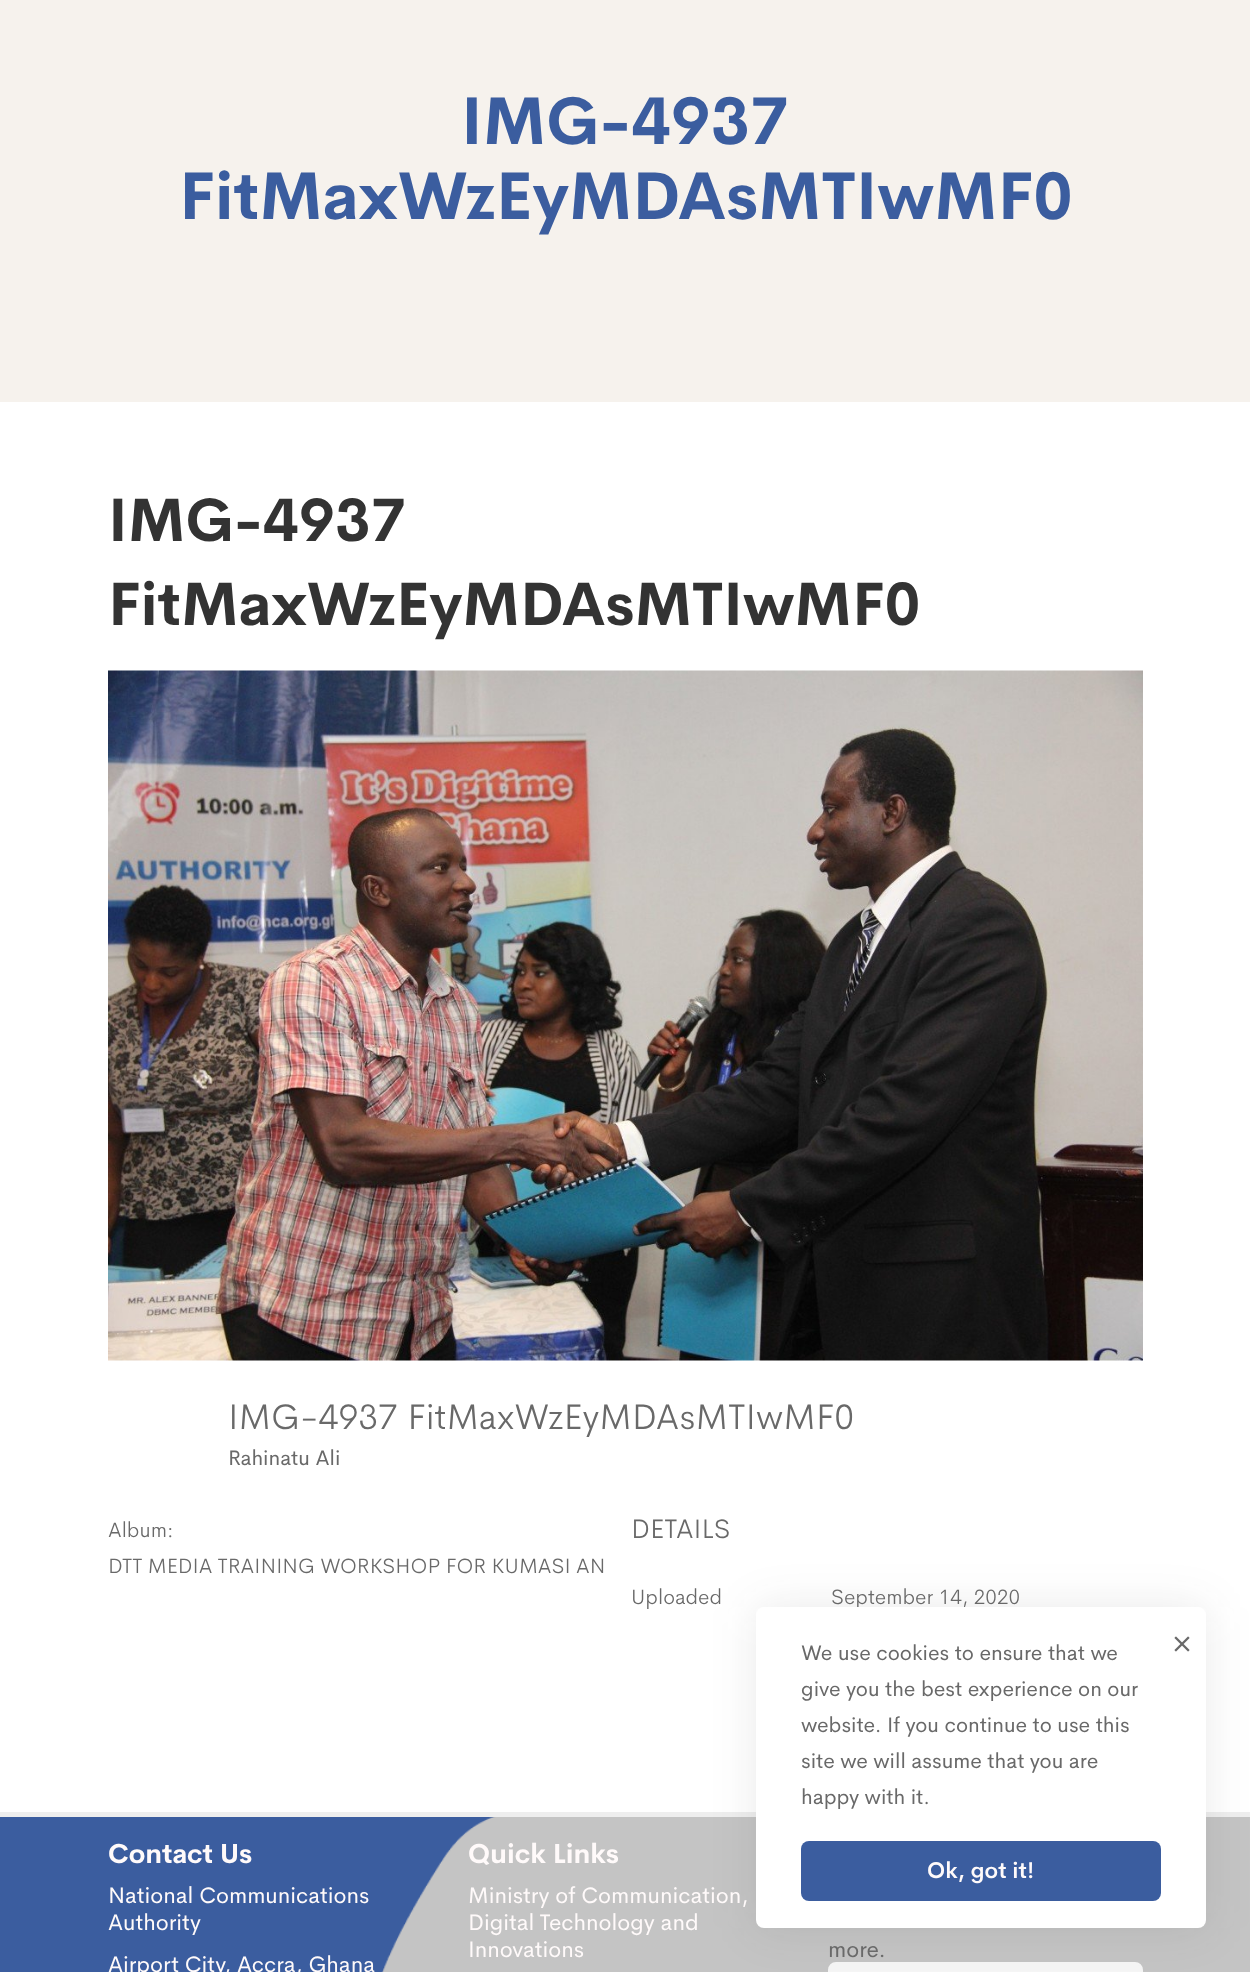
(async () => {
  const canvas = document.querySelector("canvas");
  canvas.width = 1250;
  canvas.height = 1972;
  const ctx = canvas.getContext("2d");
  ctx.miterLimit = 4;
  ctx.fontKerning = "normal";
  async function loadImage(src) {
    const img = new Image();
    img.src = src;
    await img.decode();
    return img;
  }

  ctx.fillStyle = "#ffffff";
  ctx.fillRect(0, 0, 1250, 1972);
  ctx.fillStyle = "#f6f2ed";
  ctx.fillRect(0, 0, 1250, 402);
  ctx.drawImage(await loadImage("img/1.png"), 108, 670, 1035, 691);
  ctx.fillStyle = "#3b5d9f";
  ctx.fillRect(0, 1817, 496, 155);
  ctx.drawImage(await loadImage("img/2.png"), 381, 1817, 869, 155);
  ctx.fillStyle = "#eeeeee";
  ctx.fillRect(0, 1812, 1250, 5);
  ctx.fillStyle = "#f5f5f5";
  ctx.beginPath();
  ctx.roundRect(829, 1963, 313, 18, 7);
  ctx.fill();
  ctx.strokeStyle = "#f5f5f5";
  ctx.lineWidth = 2;
  ctx.stroke();
  ctx.fillStyle = "rgba(51, 51, 51, 0.1)";
  ctx.filter = "blur(22.5px)";
  ctx.beginPath();
  ctx.roundRect(756, 1607, 450, 321, 8);
  ctx.fill();
  ctx.filter = "none";
  ctx.font = "bold 66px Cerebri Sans";
  ctx.fillStyle = "#3b5d9f";
  ctx.fillText("IMG-4937", 461, 144);
  ctx.fillText("FitMaxWzEyMDAsMTIwMF0", 179, 219);
  ctx.font = "bold 60px Cerebri Sans";
  ctx.fillStyle = "#333333";
  ctx.fillText("IMG-4937", 108, 541);
  ctx.fillText("FitMaxWzEyMDAsMTIwMF0", 108, 625);
  ctx.font = "300 36px Cerebri Sans";
  ctx.fillStyle = "#696969";
  ctx.fillText("IMG-4937 FitMaxWzEyMDAsMTIwMF0", 228, 1429);
  ctx.font = "21px Cerebri Sans";
  ctx.fillText("Rahinatu Ali", 228, 1465);
  ctx.font = "300 21px Cerebri Sans";
  ctx.fillText("Album:", 108, 1537);
  ctx.fillText("DTT MEDIA TRAINING WORKSHOP FOR KUMASI AN", 108, 1573);
  ctx.font = "300 27px Cerebri Sans";
  ctx.fillText("DETAILS", 631, 1538);
  ctx.font = "300 21px Cerebri Sans";
  ctx.fillText("Uploaded", 631, 1604);
  ctx.fillText("September 14, 2020", 831, 1604);
  ctx.font = "bold 27px Cerebri Sans";
  ctx.fillStyle = "#fffafa";
  ctx.fillText("Contact Us", 108, 1863);
  ctx.font = "22.5px Cerebri Sans";
  for (const [text, x, y] of [
    ["National Communications", 108, 1903],
    ["Authority", 108, 1930],
    ["Airport City, Accra, Ghana", 108, 1972],
  ]) {
    ctx.fillText(text, x, y);
  }
  ctx.font = "bold 27px Cerebri Sans";
  ctx.fillText("Quick Links", 468, 1863);
  ctx.font = "22.5px Cerebri Sans";
  for (const [text, x, y] of [
    ["Ministry of Communication,", 468, 1903],
    ["Digital Technology and", 468, 1930],
    ["Innovations", 468, 1957],
  ]) {
    ctx.fillText(text, x, y);
  }
  ctx.fillStyle = "#696969";
  ctx.fillText("more.", 828, 1957);
  ctx.fillStyle = "#ffffff";
  ctx.beginPath();
  ctx.roundRect(756, 1607, 450, 321, 8);
  ctx.fill();
  ctx.font = "21px Cerebri Sans";
  ctx.fillStyle = "#696969";
  for (const [text, x, y] of [
    ["We use cookies to ensure that we", 801, 1660],
    ["give you the best experience on our", 801, 1696],
    ["website. If you continue to use this", 801, 1732],
    ["site we will assume that you are", 801, 1768],
    ["happy with it.", 801, 1804],
  ]) {
    ctx.fillText(text, x, y);
  }
  ctx.fillStyle = "#3b5d9f";
  ctx.beginPath();
  ctx.roundRect(801, 1841, 360, 60, 8);
  ctx.fill();
  ctx.font = "600 22.5px Cerebri Sans";
  ctx.fillStyle = "#fffafa";
  ctx.fillText("Ok, got it!", 927, 1878);
  ctx.drawImage(await loadImage("img/3.png"), 1174, 1636, 16, 16);
})();
